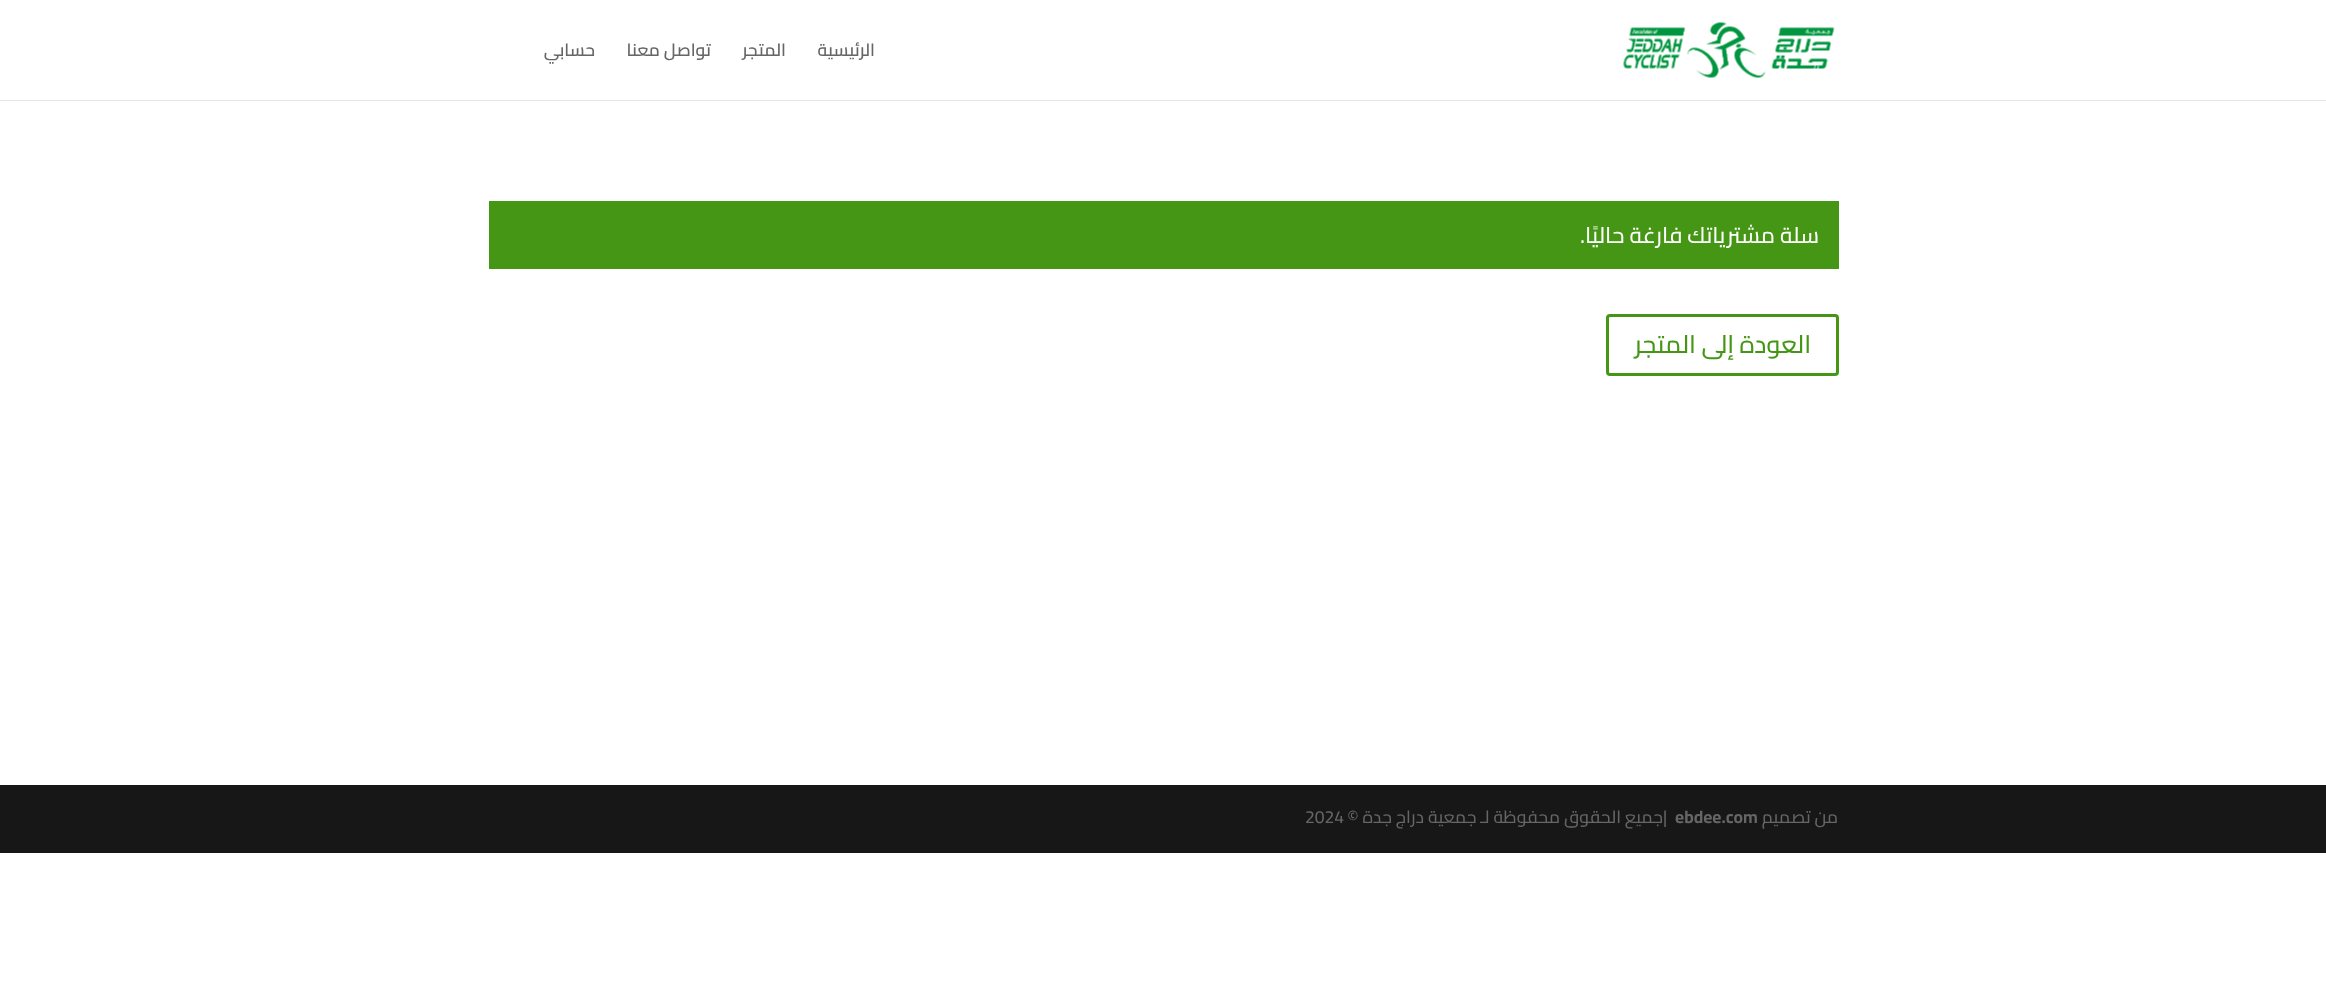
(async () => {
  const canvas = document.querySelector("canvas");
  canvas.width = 2326;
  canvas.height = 981;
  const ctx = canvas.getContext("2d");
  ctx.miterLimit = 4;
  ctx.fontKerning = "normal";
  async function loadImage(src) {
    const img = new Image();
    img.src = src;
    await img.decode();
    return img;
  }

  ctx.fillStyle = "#ffffff";
  ctx.fillRect(0, 0, 2326, 981);
  ctx.fillStyle = "#e6e6e6";
  ctx.fillRect(0, 100, 2326, 1);
  ctx.drawImage(await loadImage("img/1.png"), 1623, 22, 212, 56);
  ctx.fillStyle = "#469615";
  ctx.fillRect(489, 201, 1350, 68);
  ctx.beginPath();
  ctx.roundRect(1607.5, 315.5, 230, 59, 2.5);
  ctx.strokeStyle = "#469615";
  ctx.lineWidth = 3;
  ctx.stroke();
  ctx.fillStyle = "#171717";
  ctx.fillRect(0, 785, 2326, 68);
  ctx.direction = "rtl";
  ctx.font = "600 17.5px Cairo";
  ctx.fillStyle = "#666666";
  for (const [text, x, y] of [
    ["الرئيسية", 875, 56],
    ["المتجر", 786, 56],
    ["تواصل معنا", 711, 56],
    ["حسابي", 595, 56],
  ]) {
    ctx.fillText(text, x, y);
  }
  ctx.font = "500 22.5px Cairo";
  ctx.fillStyle = "#ffffff";
  ctx.fillText("سلة مشترياتك فارغة حاليًا.", 1819, 243);
  ctx.font = "500 25px Cairo";
  ctx.fillStyle = "#469615";
  ctx.fillText("العودة إلى المتجر", 1811, 353);
  ctx.font = "500 17.5px Cairo";
  ctx.fillStyle = "#666666";
  ctx.fillText("من تصميم", 1838, 823);
  ctx.direction = "ltr";
  ctx.font = "bold 17.5px Cairo";
  ctx.fillText("ebdee.com", 1675, 823);
  ctx.font = "500 17.5px Cairo";
  ctx.fillText("|", 1663, 823);
  ctx.direction = "rtl";
  ctx.fillText("جميع الحقوق محفوظة لـ جمعية دراج جدة ©", 1663, 823);
  ctx.direction = "ltr";
  ctx.fillText("2024", 1305, 823);
})();
